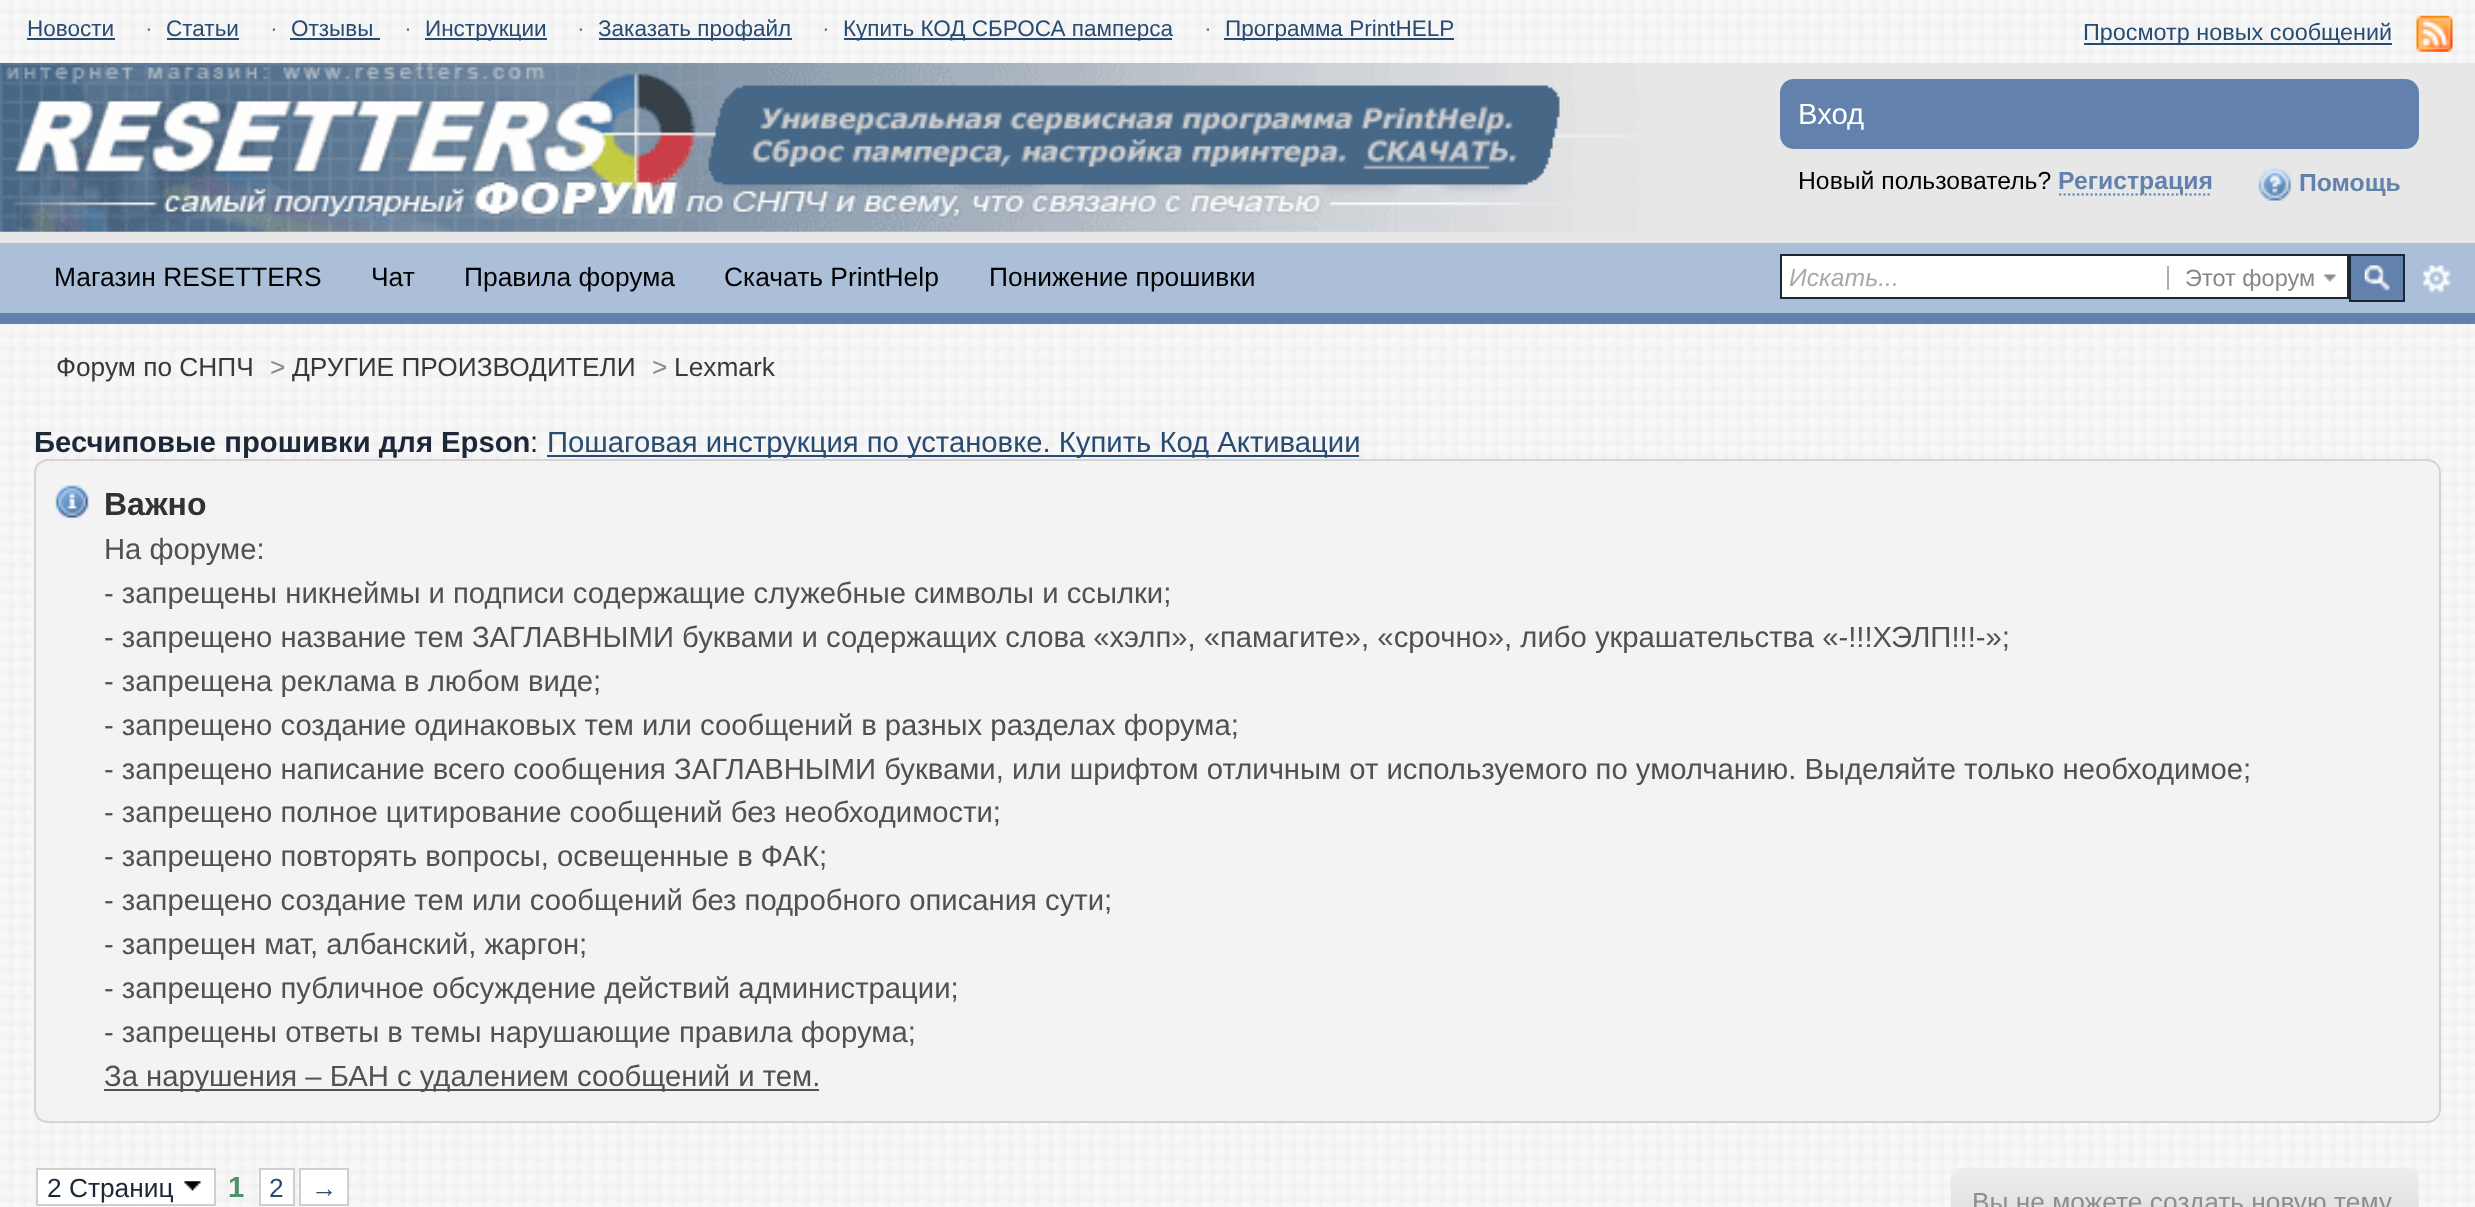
(async () => {
  const canvas = document.querySelector("canvas");
  canvas.width = 2475;
  canvas.height = 1207;
  const ctx = canvas.getContext("2d");
  ctx.miterLimit = 4;
  ctx.fontKerning = "normal";
  async function loadImage(src) {
    const img = new Image();
    img.src = src;
    await img.decode();
    return img;
  }
  let path;

  ctx.fillStyle = "#ffffff";
  ctx.fillRect(0, 0, 2475, 1207);
  ctx.drawImage(await loadImage("img/1.png"), 0, 0, 2475, 1207);
  for (const [x, y, w, h, color] of [
    [27, 38, 88, 2, "#284b72"],
    [167, 38, 72, 2, "#284b72"],
    [290, 38, 90, 2, "#284b72"],
    [425, 38, 122, 2, "#284b72"],
    [599, 38, 193, 2, "#284b72"],
    [844, 38, 328, 2, "#284b72"],
    [1224, 38, 230, 2, "#284b72"],
    [2084, 43, 308, 2, "#284b72"],
  ]) {
    ctx.fillStyle = color;
    ctx.fillRect(x, y, w, h);
  }
  ctx.drawImage(await loadImage("img/2.png"), 2416, 15, 37, 37);
  ctx.fillStyle = "#e7e7e7";
  ctx.fillRect(0, 63, 2475, 180);
  ctx.drawImage(await loadImage("img/3.png"), 0, 63, 1644, 169);
  ctx.fillStyle = "#6282ad";
  ctx.beginPath();
  ctx.roundRect(1780, 79, 639, 70, 14);
  ctx.fill();
  path = new Path2D("M2059 194.5H2212");
  ctx.strokeStyle = "#6282ad";
  ctx.lineWidth = 2.2;
  ctx.setLineDash([2.25, 2.25]);
  ctx.stroke(path);
  ctx.drawImage(await loadImage("img/4.png"), 2258, 168, 34, 33);
  ctx.fillStyle = "#acbfd9";
  ctx.fillRect(0, 243, 2475, 70);
  ctx.fillStyle = "#6282ad";
  ctx.fillRect(0, 313, 2475, 11);
  ctx.fillStyle = "#ffffff";
  ctx.beginPath();
  ctx.rect(1781, 255, 567, 43);
  ctx.fill();
  ctx.strokeStyle = "#1a2735";
  ctx.lineWidth = 2;
  ctx.setLineDash([]);
  ctx.stroke();
  ctx.drawImage(await loadImage("img/5.png"), 2323, 274, 14, 8);
  ctx.fillStyle = "#afafaf";
  ctx.fillRect(2167, 266, 2, 24);
  ctx.fillStyle = "#6282ad";
  ctx.fillRect(2351, 256, 52, 44);
  ctx.drawImage(await loadImage("img/6.png"), 2364, 265, 26, 26);
  ctx.strokeRect(2350, 255, 54, 46);
  ctx.drawImage(await loadImage("img/7.png"), 2422, 265, 29, 28);
  ctx.fillStyle = "#284b72";
  ctx.fillRect(547, 455, 812, 2);
  ctx.fillStyle = "#f3f3f3";
  ctx.beginPath();
  ctx.roundRect(34, 459, 2407, 664, 14);
  ctx.fill();
  ctx.drawImage(await loadImage("img/8.png"), 55, 485, 34, 34);
  ctx.beginPath();
  ctx.roundRect(35, 460, 2405, 662, 13);
  ctx.strokeStyle = "#d4d4d4";
  ctx.stroke();
  ctx.fillStyle = "#515151";
  ctx.fillRect(104, 1089, 715, 2);
  ctx.fillStyle = "#ffffff";
  ctx.beginPath();
  ctx.rect(37, 1169, 178, 36);
  ctx.fill();
  ctx.strokeStyle = "#cfcfcf";
  ctx.stroke();
  ctx.drawImage(await loadImage("img/9.png"), 184, 1181, 17, 10);
  ctx.beginPath();
  ctx.rect(260, 1169, 34, 36);
  ctx.fill();
  ctx.stroke();
  ctx.beginPath();
  ctx.rect(300, 1169, 48, 36);
  ctx.fill();
  ctx.stroke();
  ctx.drawImage(await loadImage("img/10.png"), 1950, 1168, 15, 39);
  ctx.drawImage(await loadImage("img/11.png"), 1964, 1168, 455, 39);
  ctx.font = "22.5px Liberation Sans";
  ctx.fillStyle = "#284b72";
  ctx.fillText("Новости", 27, 36);
  ctx.font = "23.4px Liberation Sans";
  ctx.fillStyle = "#767676";
  ctx.fillText("·", 145, 36);
  ctx.font = "22.5px Liberation Sans";
  ctx.fillStyle = "#284b72";
  ctx.fillText("Статьи", 166, 36);
  ctx.font = "23.4px Liberation Sans";
  ctx.fillStyle = "#767676";
  ctx.fillText("·", 270, 36);
  ctx.font = "22.5px Liberation Sans";
  ctx.fillStyle = "#284b72";
  ctx.fillText("Отзывы", 291, 36);
  ctx.font = "23.4px Liberation Sans";
  ctx.fillStyle = "#767676";
  ctx.fillText("·", 404, 36);
  ctx.font = "22.5px Liberation Sans";
  ctx.fillStyle = "#284b72";
  ctx.fillText("Инструкции", 425, 36);
  ctx.font = "23.4px Liberation Sans";
  ctx.fillStyle = "#767676";
  ctx.fillText("·", 577, 36);
  ctx.font = "22.5px Liberation Sans";
  ctx.fillStyle = "#284b72";
  ctx.fillText("Заказать профайл", 598, 36);
  ctx.font = "23.4px Liberation Sans";
  ctx.fillStyle = "#767676";
  ctx.fillText("·", 822, 36);
  ctx.font = "22.5px Liberation Sans";
  ctx.fillStyle = "#284b72";
  ctx.fillText("Купить КОД СБРОСА памперса", 843, 36);
  ctx.font = "23.4px Liberation Sans";
  ctx.fillStyle = "#767676";
  ctx.fillText("·", 1204, 36);
  ctx.font = "22.5px Liberation Sans";
  ctx.fillStyle = "#284b72";
  ctx.fillText("Программа PrintHELP", 1225, 36);
  ctx.font = "23.4px Liberation Sans";
  ctx.fillText("Просмотр новых сообщений", 2083, 40);
  ctx.font = "29.25px Liberation Sans";
  ctx.fillStyle = "#ffffff";
  ctx.fillText("Вход", 1798, 124);
  ctx.font = "24.75px Liberation Sans";
  ctx.fillStyle = "#000000";
  ctx.fillText("Новый пользователь?", 1798, 189);
  ctx.font = "bold 24.75px Liberation Sans";
  ctx.fillStyle = "#6282ad";
  ctx.fillText("Регистрация", 2058, 189);
  ctx.fillText("Помощь", 2299, 191);
  ctx.font = "26.4px Liberation Sans";
  ctx.fillStyle = "#000000";
  for (const [text, x, y] of [
    ["Магазин RESETTERS", 54, 286],
    ["Чат", 371, 286],
    ["Правила форума", 464, 286],
    ["Скачать PrintHelp", 724, 286],
    ["Понижение прошивки", 989, 286],
  ]) {
    ctx.fillText(text, x, y);
  }
  ctx.font = "italic 24.75px Liberation Sans";
  ctx.fillStyle = "#a9a9a9";
  ctx.fillText("Искать...", 1789, 286);
  ctx.font = "23.5px Liberation Sans";
  ctx.fillStyle = "#878787";
  ctx.fillText("Этот форум", 2185, 286);
  ctx.font = "26.3px Liberation Sans";
  ctx.fillStyle = "#393939";
  ctx.fillText("Форум по СНПЧ", 56, 376);
  ctx.fillStyle = "#878787";
  ctx.fillText(">", 270, 376);
  ctx.fillStyle = "#393939";
  ctx.fillText("ДРУГИЕ ПРОИЗВОДИТЕЛИ", 292, 376);
  ctx.fillStyle = "#878787";
  ctx.fillText(">", 652, 376);
  ctx.fillStyle = "#393939";
  ctx.fillText("Lexmark", 674, 376);
  ctx.font = "bold 29.25px Liberation Sans";
  ctx.fillStyle = "#1c2837";
  ctx.fillText("Бесчиповые прошивки для Epson", 34, 452);
  ctx.font = "29.25px Liberation Sans";
  ctx.fillText(":", 530, 452);
  ctx.fillStyle = "#284b72";
  ctx.fillText("Пошаговая инструкция по установке. Купить Код Активации", 547, 452);
  ctx.font = "bold 32px Liberation Sans";
  ctx.fillStyle = "#323232";
  ctx.fillText("Важно", 104, 515);
  ctx.font = "29.25px Liberation Sans";
  ctx.fillStyle = "#515151";
  for (const [text, x, y] of [
    ["На форуме:", 104, 559],
    ["- запрещены никнеймы и подписи содержащие служебные символы и ссылки;", 104, 603],
    ["- запрещено название тем ЗАГЛАВНЫМИ буквами и содержащих слова «хэлп», «памагите», «срочно», либо украшательства «-!!!ХЭЛП!!!-»;", 104, 647],
    ["- запрещена реклама в любом виде;", 104, 691],
    ["- запрещено создание одинаковых тем или сообщений в разных разделах форума;", 104, 735],
    ["- запрещено написание всего сообщения ЗАГЛАВНЫМИ буквами, или шрифтом отличным от используемого по умолчанию. Выделяйте только необходимое;", 104, 779],
    ["- запрещено полное цитирование сообщений без необходимости;", 104, 822],
    ["- запрещено повторять вопросы, освещенные в ФАК;", 104, 866],
    ["- запрещено создание тем или сообщений без подробного описания сути;", 104, 910],
    ["- запрещен мат, албанский, жаргон;", 104, 954],
    ["- запрещено публичное обсуждение действий администрации;", 104, 998],
    ["- запрещены ответы в темы нарушающие правила форума;", 104, 1042],
    ["За нарушения – БАН с удалением сообщений и тем.", 104, 1086],
  ]) {
    ctx.fillText(text, x, y);
  }
  ctx.font = "26.3px Liberation Sans";
  ctx.fillStyle = "#1c2837";
  ctx.fillText("2 Страниц", 47, 1197);
  ctx.font = "bold 29.25px Liberation Sans";
  ctx.fillStyle = "#528f6c";
  ctx.fillText("1", 228, 1197);
  ctx.font = "26.3px Liberation Sans";
  ctx.fillStyle = "#284b72";
  ctx.fillText("2", 269, 1197);
  ctx.fillText("→", 311, 1197);
  ctx.fillStyle = "#8f8e8e";
  ctx.fillText("Вы не можете создать новую тему", 1972, 1211);
})();
